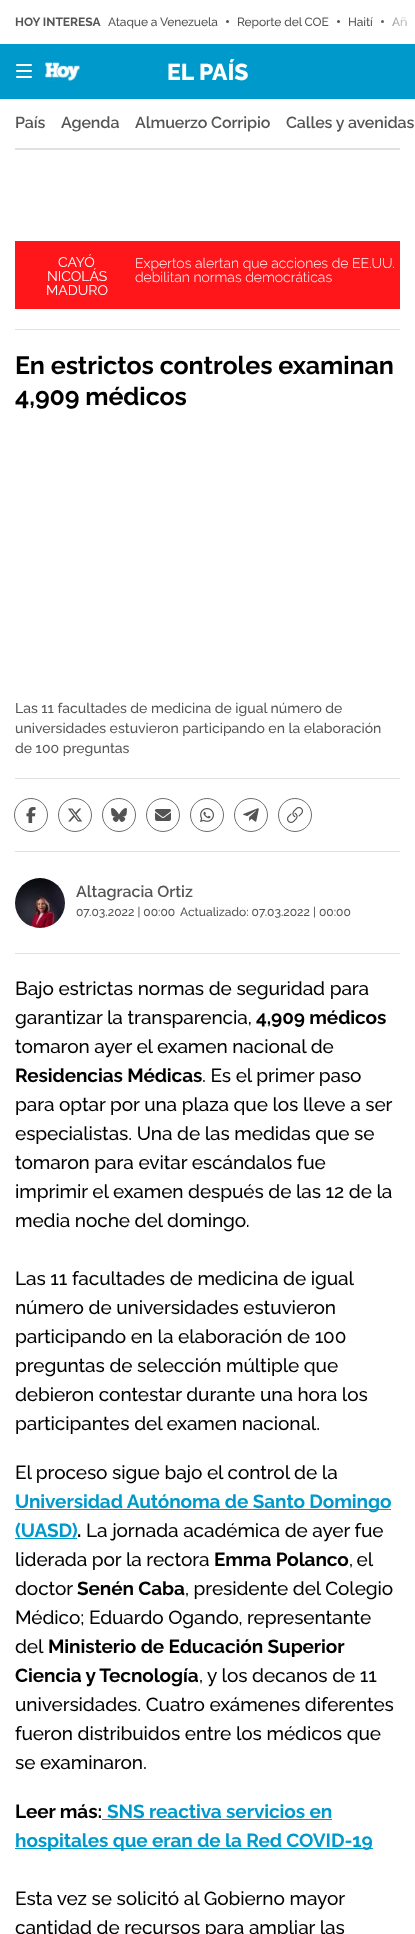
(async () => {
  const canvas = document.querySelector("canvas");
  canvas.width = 415;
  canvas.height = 1934;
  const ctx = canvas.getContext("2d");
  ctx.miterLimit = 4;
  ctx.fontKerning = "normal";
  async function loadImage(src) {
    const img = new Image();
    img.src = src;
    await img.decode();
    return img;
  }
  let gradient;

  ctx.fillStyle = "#ffffff";
  ctx.fillRect(0, 0, 415, 1934);
  ctx.fillStyle = "#0099cc";
  ctx.fillRect(0, 44, 415, 55);
  ctx.fillStyle = "#555555";
  ctx.beginPath();
  ctx.arc(227.5, 21.5, 1.5, 0, Math.PI * 2);
  ctx.fill();
  ctx.beginPath();
  ctx.arc(338.5, 21.5, 1.5, 0, Math.PI * 2);
  ctx.fill();
  ctx.beginPath();
  ctx.arc(382.5, 21.5, 1.5, 0, Math.PI * 2);
  ctx.fill();
  ctx.fillStyle = "#ffffff";
  ctx.beginPath();
  ctx.roundRect(16, 70, 16, 2, 1);
  ctx.fill();
  ctx.beginPath();
  ctx.roundRect(16, 64, 16, 2, 1);
  ctx.fill();
  ctx.beginPath();
  ctx.roundRect(16, 76, 16, 2, 1);
  ctx.fill();
  ctx.drawImage(await loadImage("img/1.png"), 45, 62, 35, 19);
  for (const [x, y, w, h, color] of [
    [15, 148, 385, 2, "#e0e0e0"],
    [15, 241, 385, 68, "#ff161a"],
    [15, 329, 385, 1, "#e0e0e0"],
    [15, 778, 385, 1, "#e0e0e0"],
    [15, 851, 385, 1, "#e0e0e0"],
  ]) {
    ctx.fillStyle = color;
    ctx.fillRect(x, y, w, h);
  }
  ctx.drawImage(await loadImage("img/2.png"), 26, 807, 10, 16);
  ctx.beginPath();
  ctx.arc(31, 815, 16.5, 0, Math.PI * 2);
  ctx.strokeStyle = "#6f6f6f";
  ctx.stroke();
  ctx.drawImage(await loadImage("img/3.png"), 68, 808, 15, 14);
  ctx.beginPath();
  ctx.arc(75, 815, 16.5, 0, Math.PI * 2);
  ctx.stroke();
  ctx.drawImage(await loadImage("img/4.png"), 111, 808, 16, 14);
  ctx.beginPath();
  ctx.arc(119, 815, 16.5, 0, Math.PI * 2);
  ctx.stroke();
  ctx.drawImage(await loadImage("img/5.png"), 155, 809, 16, 12);
  ctx.beginPath();
  ctx.arc(163, 815, 16.5, 0, Math.PI * 2);
  ctx.stroke();
  ctx.drawImage(await loadImage("img/6.png"), 200, 808, 14, 14);
  ctx.beginPath();
  ctx.arc(207, 815, 16.5, 0, Math.PI * 2);
  ctx.stroke();
  ctx.drawImage(await loadImage("img/7.png"), 243, 808, 16, 14);
  ctx.beginPath();
  ctx.arc(251, 815, 16.5, 0, Math.PI * 2);
  ctx.stroke();
  ctx.drawImage(await loadImage("img/8.png"), 287, 807, 16, 16);
  ctx.beginPath();
  ctx.arc(295, 815, 16.5, 0, Math.PI * 2);
  ctx.stroke();
  ctx.fillRect(15, 953, 385, 1);
  ctx.drawImage(await loadImage("img/9.png"), 15, 878, 50, 50);
  for (const [x, y, w, h, color] of [
    [15, 1509, 376, 1, "#0099cc"],
    [15, 1538, 62, 1, "#0099cc"],
    [102, 1819, 230, 1, "#0099cc"],
    [15, 1848, 358, 1, "#0099cc"],
  ]) {
    ctx.fillStyle = color;
    ctx.fillRect(x, y, w, h);
  }
  ctx.font = "bold 12px Raleway";
  ctx.fillStyle = "#555555";
  ctx.fillText("HOY INTERESA", 15, 26);
  ctx.letterSpacing = "-0.1px";
  ctx.font = "500 12px Raleway";
  for (const [text, x, y] of [
    ["Ataque a Venezuela", 108, 26],
    ["Reporte del COE", 237, 26],
    ["Haití", 348, 26],
    ["Añ", 392, 26],
  ]) {
    ctx.fillText(text, x, y);
  }
  gradient = ctx.createLinearGradient(380, 22, 415, 22);
  gradient.addColorStop(0, "rgba(255, 255, 255, 0)");
  gradient.addColorStop(1, "#ffffff");
  ctx.fillStyle = gradient;
  ctx.fillRect(381, 17, 25, 9);
  ctx.letterSpacing = "0px";
  ctx.font = "800 23px Raleway";
  ctx.fillStyle = "#ffffff";
  ctx.fillText("EL PAÍS", 167, 80);
  ctx.letterSpacing = "-0.1px";
  ctx.font = "600 16px Raleway";
  ctx.fillStyle = "#555555";
  for (const [text, x, y] of [
    ["País", 15, 128],
    ["Agenda", 61, 128],
    ["Almuerzo Corripio", 135, 128],
    ["Calles y avenidas", 286, 128],
  ]) {
    ctx.fillText(text, x, y);
  }
  ctx.letterSpacing = "0px";
  ctx.font = "14px Raleway";
  ctx.fillStyle = "#ffffff";
  for (const [text, x, y] of [
    ["CAYÓ", 58, 267],
    ["NICOLÁS", 47, 281],
    ["MADURO", 46, 295],
  ]) {
    ctx.fillText(text, x, y);
  }
  ctx.font = "300 14px Raleway";
  ctx.fillText("Expertos alertan que acciones de EE.UU.", 135, 268);
  ctx.fillText("debilitan normas democráticas", 135, 282);
  ctx.letterSpacing = "-0.1px";
  ctx.font = "bold 25px Raleway";
  ctx.fillStyle = "#000000";
  ctx.fillText("En estrictos controles examinan", 15, 374);
  ctx.fillText("4,909 médicos", 15, 405);
  ctx.letterSpacing = "0px";
  ctx.font = "500 14px Raleway";
  ctx.fillStyle = "#555555";
  for (const [text, x, y] of [
    ["Las 11 facultades de medicina de igual número de", 15, 713],
    ["universidades estuvieron participando en la elaboración", 15, 733],
    ["de 100 preguntas", 15, 753],
  ]) {
    ctx.fillText(text, x, y);
  }
  ctx.font = "600 16px Raleway";
  ctx.fillText("Altagracia Ortiz", 76, 897);
  ctx.font = "500 12px Raleway";
  ctx.fillText("07.03.2022 | 00:00", 76, 916);
  ctx.fillText("Actualizado: 07.03.2022 | 00:00", 180, 916);
  ctx.letterSpacing = "-0.1px";
  ctx.font = "500 19px Raleway";
  ctx.fillStyle = "#000000";
  ctx.fillText("Bajo estrictas normas de seguridad para", 15, 995);
  ctx.fillText("garantizar la transparencia,", 15, 1024);
  ctx.font = "bold 19px Raleway";
  ctx.fillText("4,909 médicos", 256, 1024);
  ctx.font = "500 19px Raleway";
  ctx.fillText("tomaron ayer el examen nacional de", 15, 1053);
  ctx.font = "bold 19px Raleway";
  ctx.fillText("Residencias Médicas", 15, 1082);
  ctx.font = "500 19px Raleway";
  for (const [text, x, y] of [
    [". Es el primer paso", 202, 1082],
    ["para optar por una plaza que los lleve a ser", 15, 1111],
    ["especialistas. Una de las medidas que se", 15, 1140],
    ["tomaron para evitar escándalos fue", 15, 1169],
    ["imprimir el examen después de las 12 de la", 15, 1198],
    ["media noche del domingo.", 15, 1227],
    ["Las 11 facultades de medicina de igual", 15, 1285],
    ["número de universidades estuvieron", 15, 1314],
    ["participando en la elaboración de 100", 15, 1343],
    ["preguntas de selección múltiple que", 15, 1372],
    ["debieron contestar durante una hora los", 15, 1401],
    ["participantes del examen nacional.", 15, 1430],
    ["El proceso sigue bajo el control de la", 15, 1479],
  ]) {
    ctx.fillText(text, x, y);
  }
  ctx.font = "bold 19px Raleway";
  ctx.fillStyle = "#0099cc";
  ctx.fillText("Universidad Autónoma de Santo Domingo", 15, 1508);
  ctx.fillText("(UASD)", 15, 1537);
  ctx.fillStyle = "#000000";
  ctx.fillText(".", 77, 1537);
  ctx.font = "500 19px Raleway";
  ctx.fillText("La jornada académica de ayer fue", 86, 1537);
  ctx.fillText("liderada por la rectora", 15, 1566);
  ctx.font = "bold 19px Raleway";
  ctx.fillText("Emma Polanco", 214, 1566);
  ctx.wordSpacing = "-1px";
  ctx.font = "500 19px Raleway";
  ctx.fillText(", el", 349, 1566);
  ctx.wordSpacing = "0px";
  ctx.fillText("doctor", 15, 1595);
  ctx.font = "bold 19px Raleway";
  ctx.fillText("Senén Caba", 77, 1595);
  ctx.font = "500 19px Raleway";
  for (const [text, x, y] of [
    [", presidente del Colegio", 185, 1595],
    ["Médico; Eduardo Ogando, representante", 15, 1624],
    ["del", 15, 1653],
  ]) {
    ctx.fillText(text, x, y);
  }
  ctx.font = "bold 19px Raleway";
  ctx.fillText("Ministerio de Educación Superior", 48, 1653);
  ctx.fillText("Ciencia y Tecnología", 15, 1682);
  ctx.font = "500 19px Raleway";
  for (const [text, x, y] of [
    [", y los decanos de 11", 199, 1682],
    ["universidades. Cuatro exámenes diferentes", 15, 1711],
    ["fueron distribuidos entre los médicos que", 15, 1740],
    ["se examinaron.", 15, 1769],
  ]) {
    ctx.fillText(text, x, y);
  }
  ctx.font = "bold 19px Raleway";
  ctx.fillText("Leer más:", 15, 1818);
  ctx.fillStyle = "#0099cc";
  ctx.fillText("SNS reactiva servicios en", 107, 1818);
  ctx.fillText("hospitales que eran de la Red COVID-19", 15, 1847);
  ctx.font = "500 19px Raleway";
  ctx.fillStyle = "#000000";
  ctx.fillText("Esta vez se solicitó al Gobierno mayor", 15, 1905);
  ctx.fillText("cantidad de recursos para ampliar las", 15, 1934);
})();
